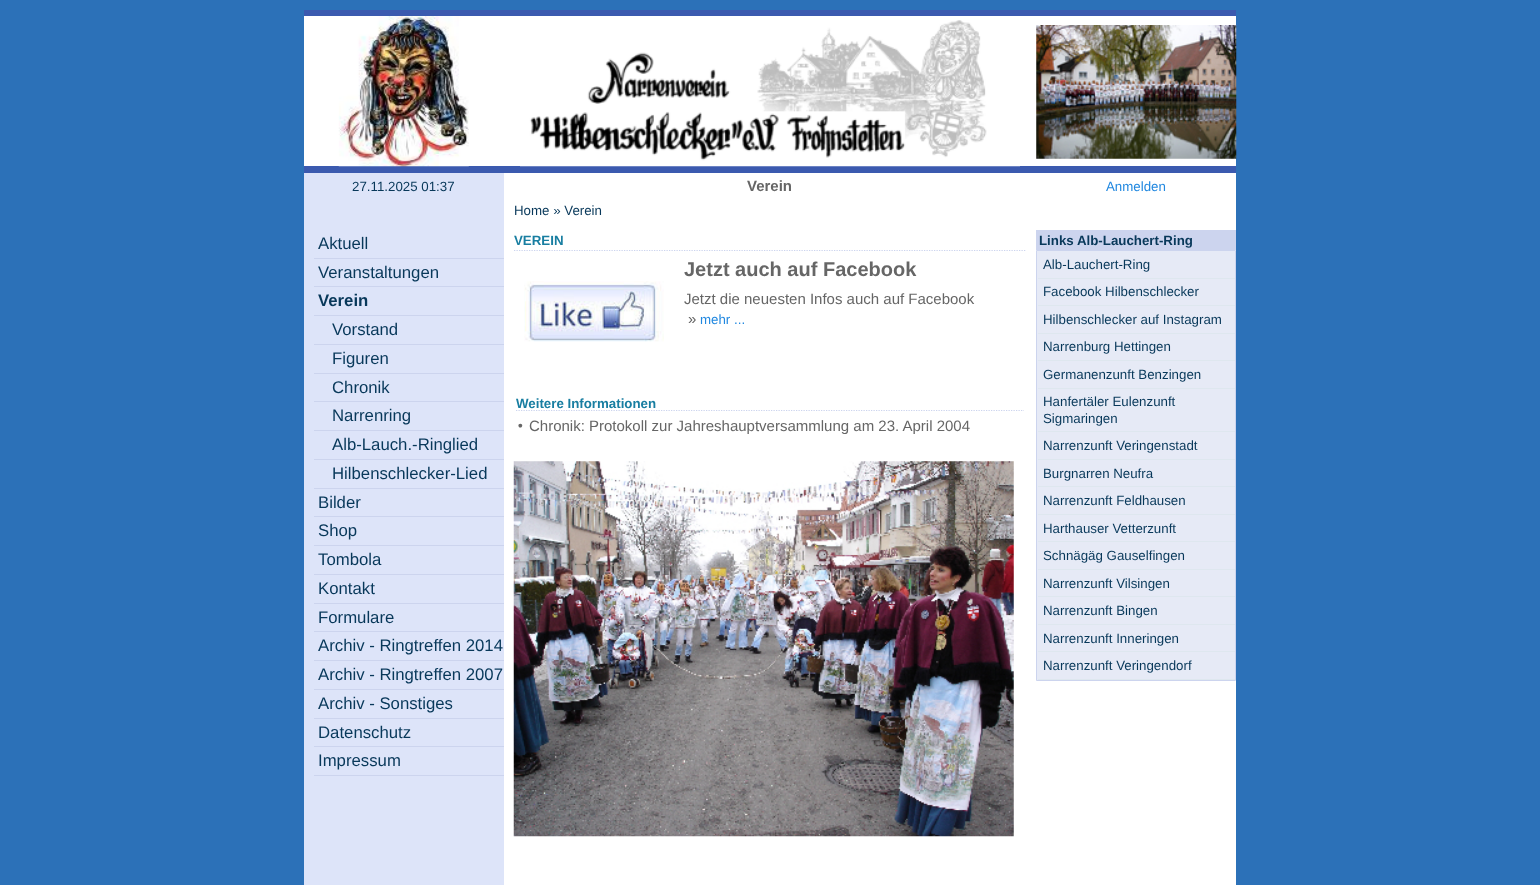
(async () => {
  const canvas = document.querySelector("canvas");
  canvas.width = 1540;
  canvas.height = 885;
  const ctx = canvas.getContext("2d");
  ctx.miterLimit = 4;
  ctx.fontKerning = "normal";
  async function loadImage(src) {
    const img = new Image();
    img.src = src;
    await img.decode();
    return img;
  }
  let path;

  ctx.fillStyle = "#2c71b8";
  ctx.fillRect(0, 0, 1540, 885);
  for (const [x, y, w, h, color] of [
    [304, 16, 932, 150, "#ffffff"],
    [304, 10, 932, 6, "#3b5aaf"],
    [304, 166, 932, 7, "#3b5aaf"],
  ]) {
    ctx.fillStyle = color;
    ctx.fillRect(x, y, w, h);
  }
  ctx.drawImage(await loadImage("img/1.png"), 338, 16, 131, 151);
  ctx.drawImage(await loadImage("img/2.png"), 520, 20, 500, 147);
  ctx.drawImage(await loadImage("img/3.png"), 1036, 25, 201, 134);
  for (const [x, y, w, h, color] of [
    [304, 173, 200, 712, "#dde4f9"],
    [504, 173, 732, 27, "#ffffff"],
    [314, 258, 190, 1, "#ccd4ee"],
    [314, 286, 190, 1, "#ccd4ee"],
    [314, 315, 190, 1, "#ccd4ee"],
    [314, 344, 190, 1, "#ccd4ee"],
    [314, 373, 190, 1, "#ccd4ee"],
    [314, 401, 190, 1, "#ccd4ee"],
    [314, 430, 190, 1, "#ccd4ee"],
    [314, 459, 190, 1, "#ccd4ee"],
    [314, 488, 190, 1, "#ccd4ee"],
    [314, 516, 190, 1, "#ccd4ee"],
    [314, 545, 190, 1, "#ccd4ee"],
    [314, 574, 190, 1, "#ccd4ee"],
    [314, 603, 190, 1, "#ccd4ee"],
    [314, 631, 190, 1, "#ccd4ee"],
    [314, 660, 190, 1, "#ccd4ee"],
    [314, 689, 190, 1, "#ccd4ee"],
    [314, 718, 190, 1, "#ccd4ee"],
    [314, 746, 190, 1, "#ccd4ee"],
    [314, 775, 190, 1, "#ccd4ee"],
    [504, 200, 732, 685, "#ffffff"],
  ]) {
    ctx.fillStyle = color;
    ctx.fillRect(x, y, w, h);
  }
  path = new Path2D("M514 250.5H1026");
  ctx.strokeStyle = "#ccd4ee";
  ctx.lineWidth = 1.2;
  ctx.setLineDash([1.25, 1.25]);
  ctx.stroke(path);
  ctx.drawImage(await loadImage("img/4.png"), 524, 281, 140, 61);
  path = new Path2D("M516 410.5H1024");
  ctx.stroke(path);
  ctx.drawImage(await loadImage("img/5.png"), 513, 461, 501, 376);
  ctx.fillStyle = "#ccd4ee";
  ctx.fillRect(1036, 230, 200, 20);
  ctx.fillStyle = "#e6eaf6";
  ctx.beginPath();
  ctx.rect(1036.5, 250.5, 199, 430);
  ctx.fill();
  ctx.lineWidth = 1;
  ctx.setLineDash([]);
  ctx.stroke();
  for (const [x, y, w, h, color] of [
    [1038, 278, 197, 1, "#dee7ef"],
    [1038, 305, 197, 1, "#dee7ef"],
    [1038, 333, 197, 1, "#dee7ef"],
    [1038, 360, 197, 1, "#dee7ef"],
    [1038, 388, 197, 1, "#dee7ef"],
    [1038, 431, 197, 1, "#dee7ef"],
    [1038, 459, 197, 1, "#dee7ef"],
    [1038, 486, 197, 1, "#dee7ef"],
    [1038, 514, 197, 1, "#dee7ef"],
    [1038, 541, 197, 1, "#dee7ef"],
    [1038, 569, 197, 1, "#dee7ef"],
    [1038, 596, 197, 1, "#dee7ef"],
    [1038, 624, 197, 1, "#dee7ef"],
    [1038, 651, 197, 1, "#dee7ef"],
    [1038, 679, 197, 1, "#dee7ef"],
  ]) {
    ctx.fillStyle = color;
    ctx.fillRect(x, y, w, h);
  }
  ctx.font = "13.3px Liberation Sans";
  ctx.fillStyle = "#08385a";
  ctx.fillText("27.11.2025 01:37", 352, 191);
  ctx.font = "bold 15px Liberation Sans";
  ctx.fillStyle = "#666666";
  ctx.fillText("Verein", 747, 191);
  ctx.font = "13.3px Liberation Sans";
  ctx.fillStyle = "#2188e0";
  ctx.fillText("Anmelden", 1106, 191);
  ctx.font = "16.75px Liberation Sans";
  ctx.fillStyle = "#08385a";
  ctx.fillText("Aktuell", 318, 249);
  ctx.fillText("Veranstaltungen", 318, 278);
  ctx.font = "bold 16.75px Liberation Sans";
  ctx.fillText("Verein", 318, 306);
  ctx.font = "16.75px Liberation Sans";
  for (const [text, x, y] of [
    ["Vorstand", 332, 335],
    ["Figuren", 332, 364],
    ["Chronik", 332, 393],
    ["Narrenring", 332, 421],
    ["Alb-Lauch.-Ringlied", 332, 450],
    ["Hilbenschlecker-Lied", 332, 479],
    ["Bilder", 318, 508],
    ["Shop", 318, 536],
    ["Tombola", 318, 565],
    ["Kontakt", 318, 594],
    ["Formulare", 318, 623],
    ["Archiv - Ringtreffen 2014", 318, 651],
    ["Archiv - Ringtreffen 2007", 318, 680],
    ["Archiv - Sonstiges", 318, 709],
    ["Datenschutz", 318, 738],
    ["Impressum", 318, 766],
  ]) {
    ctx.fillText(text, x, y);
  }
  ctx.font = "13.3px Liberation Sans";
  ctx.fillText("Home » Verein", 514, 215);
  ctx.font = "bold 13.3px Liberation Sans";
  ctx.fillStyle = "#187ea1";
  ctx.fillText("VEREIN", 514, 245);
  ctx.font = "bold 20px Liberation Sans";
  ctx.fillStyle = "#666666";
  ctx.fillText("Jetzt auch auf Facebook", 684, 276);
  ctx.font = "15px Liberation Sans";
  ctx.fillText("Jetzt die neuesten Infos auch auf Facebook", 684, 304);
  ctx.fillText("»", 688, 324);
  ctx.font = "13.3px Liberation Sans";
  ctx.fillStyle = "#2188e0";
  ctx.fillText("mehr ...", 700, 324);
  ctx.font = "bold 13.3px Liberation Sans";
  ctx.fillStyle = "#187ea1";
  ctx.fillText("Weitere Informationen", 516, 408);
  ctx.fillStyle = "#666666";
  ctx.fillText("•", 518, 430);
  ctx.font = "15px Liberation Sans";
  ctx.fillText("Chronik: Protokoll zur Jahreshauptversammlung am 23. April 2004", 529, 431);
  ctx.font = "bold 13.3px Liberation Sans";
  ctx.fillStyle = "#08385a";
  ctx.fillText("Links Alb-Lauchert-Ring", 1039, 245);
  ctx.font = "13.3px Liberation Sans";
  for (const [text, x, y] of [
    ["Alb-Lauchert-Ring", 1043, 269],
    ["Facebook Hilbenschlecker", 1043, 296],
    ["Hilbenschlecker auf Instagram", 1043, 324],
    ["Narrenburg Hettingen", 1043, 351],
    ["Germanenzunft Benzingen", 1043, 379],
    ["Hanfertäler Eulenzunft", 1043, 406],
    ["Sigmaringen", 1043, 423],
    ["Narrenzunft Veringenstadt", 1043, 450],
    ["Burgnarren Neufra", 1043, 478],
    ["Narrenzunft Feldhausen", 1043, 505],
    ["Harthauser Vetterzunft", 1043, 533],
    ["Schnägäg Gauselfingen", 1043, 560],
    ["Narrenzunft Vilsingen", 1043, 588],
    ["Narrenzunft Bingen", 1043, 615],
    ["Narrenzunft Inneringen", 1043, 643],
    ["Narrenzunft Veringendorf", 1043, 670],
  ]) {
    ctx.fillText(text, x, y);
  }
})();
